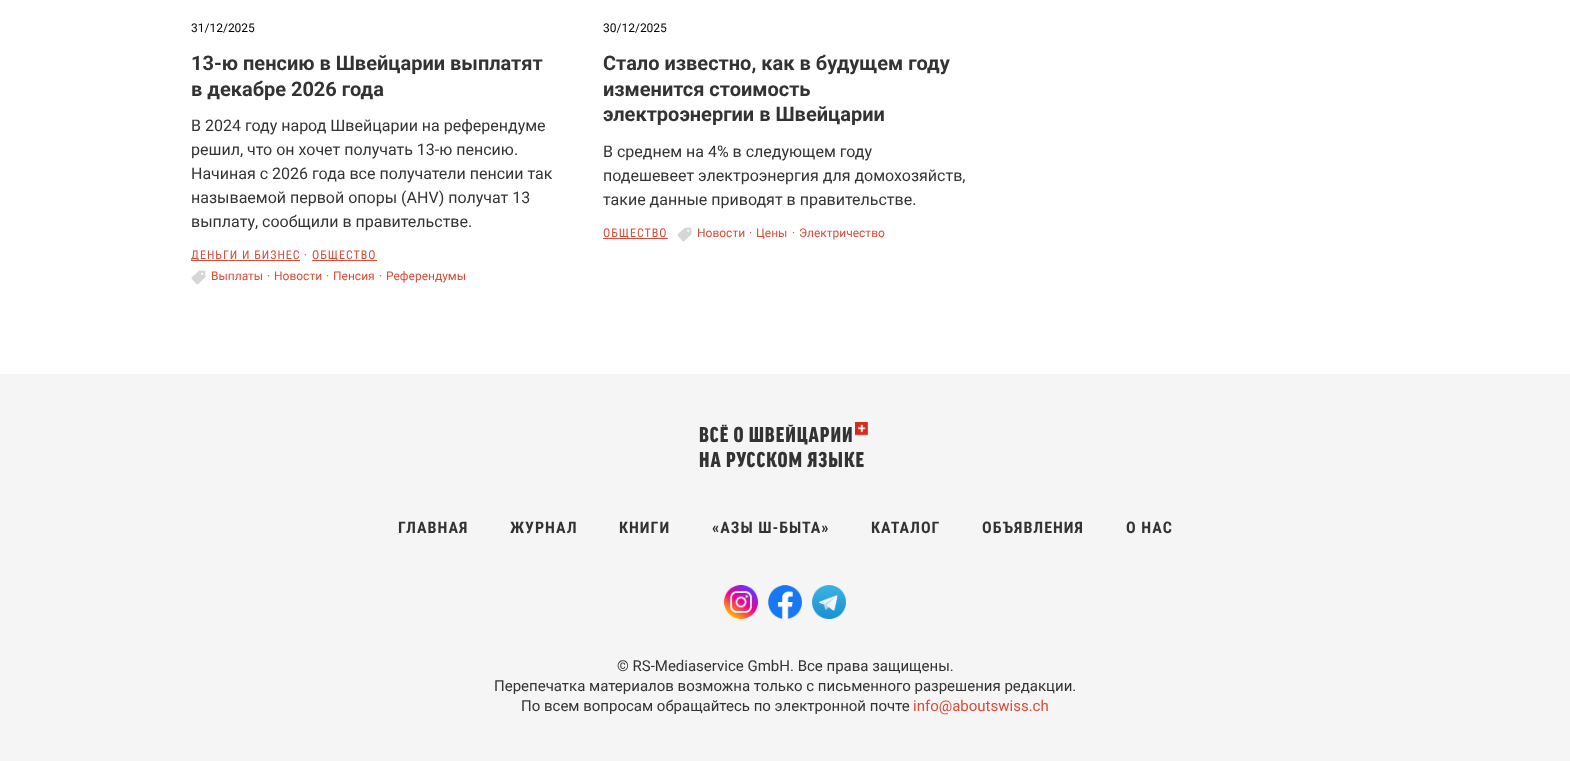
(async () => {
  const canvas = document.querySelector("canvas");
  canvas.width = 1570;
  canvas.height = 761;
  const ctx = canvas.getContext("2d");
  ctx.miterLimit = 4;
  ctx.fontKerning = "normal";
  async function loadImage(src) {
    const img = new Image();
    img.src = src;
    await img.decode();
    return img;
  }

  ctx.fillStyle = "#ffffff";
  ctx.fillRect(0, 0, 1570, 761);
  ctx.fillStyle = "#da4c38";
  ctx.fillRect(191, 260, 109, 1);
  ctx.fillRect(312, 260, 65, 1);
  ctx.drawImage(await loadImage("img/1.png"), 191, 270, 15, 15);
  ctx.fillRect(603, 238, 65, 1);
  ctx.drawImage(await loadImage("img/2.png"), 677, 227, 15, 15);
  ctx.fillStyle = "#f5f5f5";
  ctx.fillRect(0, 374, 1570, 387);
  ctx.drawImage(await loadImage("img/3.png"), 855, 422, 13, 14);
  ctx.drawImage(await loadImage("img/4.png"), 724, 585, 34, 34);
  ctx.drawImage(await loadImage("img/5.png"), 768, 585, 34, 34);
  ctx.drawImage(await loadImage("img/6.png"), 812, 585, 34, 34);
  ctx.font = "12px Roboto";
  ctx.fillStyle = "#000000";
  ctx.fillText("31/12/2025", 191, 32);
  ctx.font = "bold 20px Roboto";
  ctx.fillStyle = "#333333";
  ctx.fillText("13-ю пенсию в Швейцарии выплатят", 191, 70);
  ctx.fillText("в декабре 2026 года", 191, 96);
  ctx.font = "16px Roboto";
  for (const [text, x, y] of [
    ["В 2024 году народ Швейцарии на референдуме", 191, 131],
    ["решил, что он хочет получать 13-ю пенсию.", 191, 155],
    ["Начиная с 2026 года все получатели пенсии так", 191, 179],
    ["называемой первой опоры (AHV) получат 13", 191, 203],
    ["выплату, сообщили в правительстве.", 191, 227],
  ]) {
    ctx.fillText(text, x, y);
  }
  ctx.save();
  ctx.beginPath();
  ctx.rect(191, 247, 362, 42);
  ctx.clip();
  ctx.letterSpacing = "1px";
  ctx.font = "12px Roboto Condensed";
  ctx.fillStyle = "#dc4b39";
  ctx.fillText("ДЕНЬГИ И БИЗНЕС", 191, 259);
  ctx.restore();
  ctx.letterSpacing = "1px";
  ctx.font = "12px Roboto Condensed";
  ctx.fillStyle = "#dc4b39";
  ctx.fillText("·", 304, 259);
  ctx.fillText("ОБЩЕСТВО", 312, 259);
  ctx.letterSpacing = "0px";
  ctx.font = "12px Roboto";
  for (const [text, x, y] of [
    ["Выплаты", 211, 280],
    ["·", 267, 280],
    ["Новости", 274, 280],
    ["·", 326, 280],
    ["Пенсия", 333, 280],
    ["·", 379, 280],
    ["Референдумы", 386, 280],
  ]) {
    ctx.fillText(text, x, y);
  }
  ctx.fillStyle = "#000000";
  ctx.fillText("30/12/2025", 603, 32);
  ctx.font = "bold 20px Roboto";
  ctx.fillStyle = "#333333";
  for (const [text, x, y] of [
    ["Стало известно, как в будущем году", 603, 70],
    ["изменится стоимость", 603, 96],
    ["электроэнергии в Швейцарии", 603, 121],
  ]) {
    ctx.fillText(text, x, y);
  }
  ctx.font = "16px Roboto";
  for (const [text, x, y] of [
    ["В среднем на 4% в следующем году", 603, 157],
    ["подешевеет электроэнергия для домохозяйств,", 603, 181],
    ["такие данные приводят в правительстве.", 603, 205],
  ]) {
    ctx.fillText(text, x, y);
  }
  ctx.letterSpacing = "1px";
  ctx.font = "12px Roboto Condensed";
  ctx.fillStyle = "#dc4b39";
  ctx.fillText("ОБЩЕСТВО", 603, 237);
  ctx.letterSpacing = "0px";
  ctx.font = "12px Roboto";
  for (const [text, x, y] of [
    ["Новости", 697, 237],
    ["·", 749, 237],
    ["Цены", 756, 237],
    ["·", 792, 237],
    ["Электричество", 799, 237],
  ]) {
    ctx.fillText(text, x, y);
  }
  ctx.letterSpacing = "1px";
  ctx.font = "900 23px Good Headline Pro";
  ctx.fillStyle = "#333333";
  ctx.fillText("ВCЁ О ШВЕЙЦАРИИ", 699, 442);
  ctx.fillText("НА РУССКОМ ЯЗЫКЕ", 699, 467);
  ctx.font = "bold 16px Roboto Condensed";
  for (const [text, x, y] of [
    ["ГЛАВНАЯ", 398, 533],
    ["ЖУРНАЛ", 510, 533],
    ["КНИГИ", 619, 533],
    ["«АЗЫ Ш-БЫТА»", 712, 533],
    ["КАТАЛОГ", 871, 533],
    ["ОБЪЯВЛЕНИЯ", 982, 533],
    ["О НАС", 1126, 533],
  ]) {
    ctx.fillText(text, x, y);
  }
  ctx.letterSpacing = "0px";
  ctx.font = "15px Roboto";
  for (const [text, x, y] of [
    ["© RS-Mediaservice GmbH. Все права защищены.", 617, 671],
    ["Перепечатка материалов возможна только с письменного разрешения редакции.", 494, 691],
    ["По всем вопросам обращайтесь по электронной почте", 521, 711],
  ]) {
    ctx.fillText(text, x, y);
  }
  ctx.fillStyle = "#dc4b39";
  ctx.fillText("info@aboutswiss.ch", 913, 711);
})();
